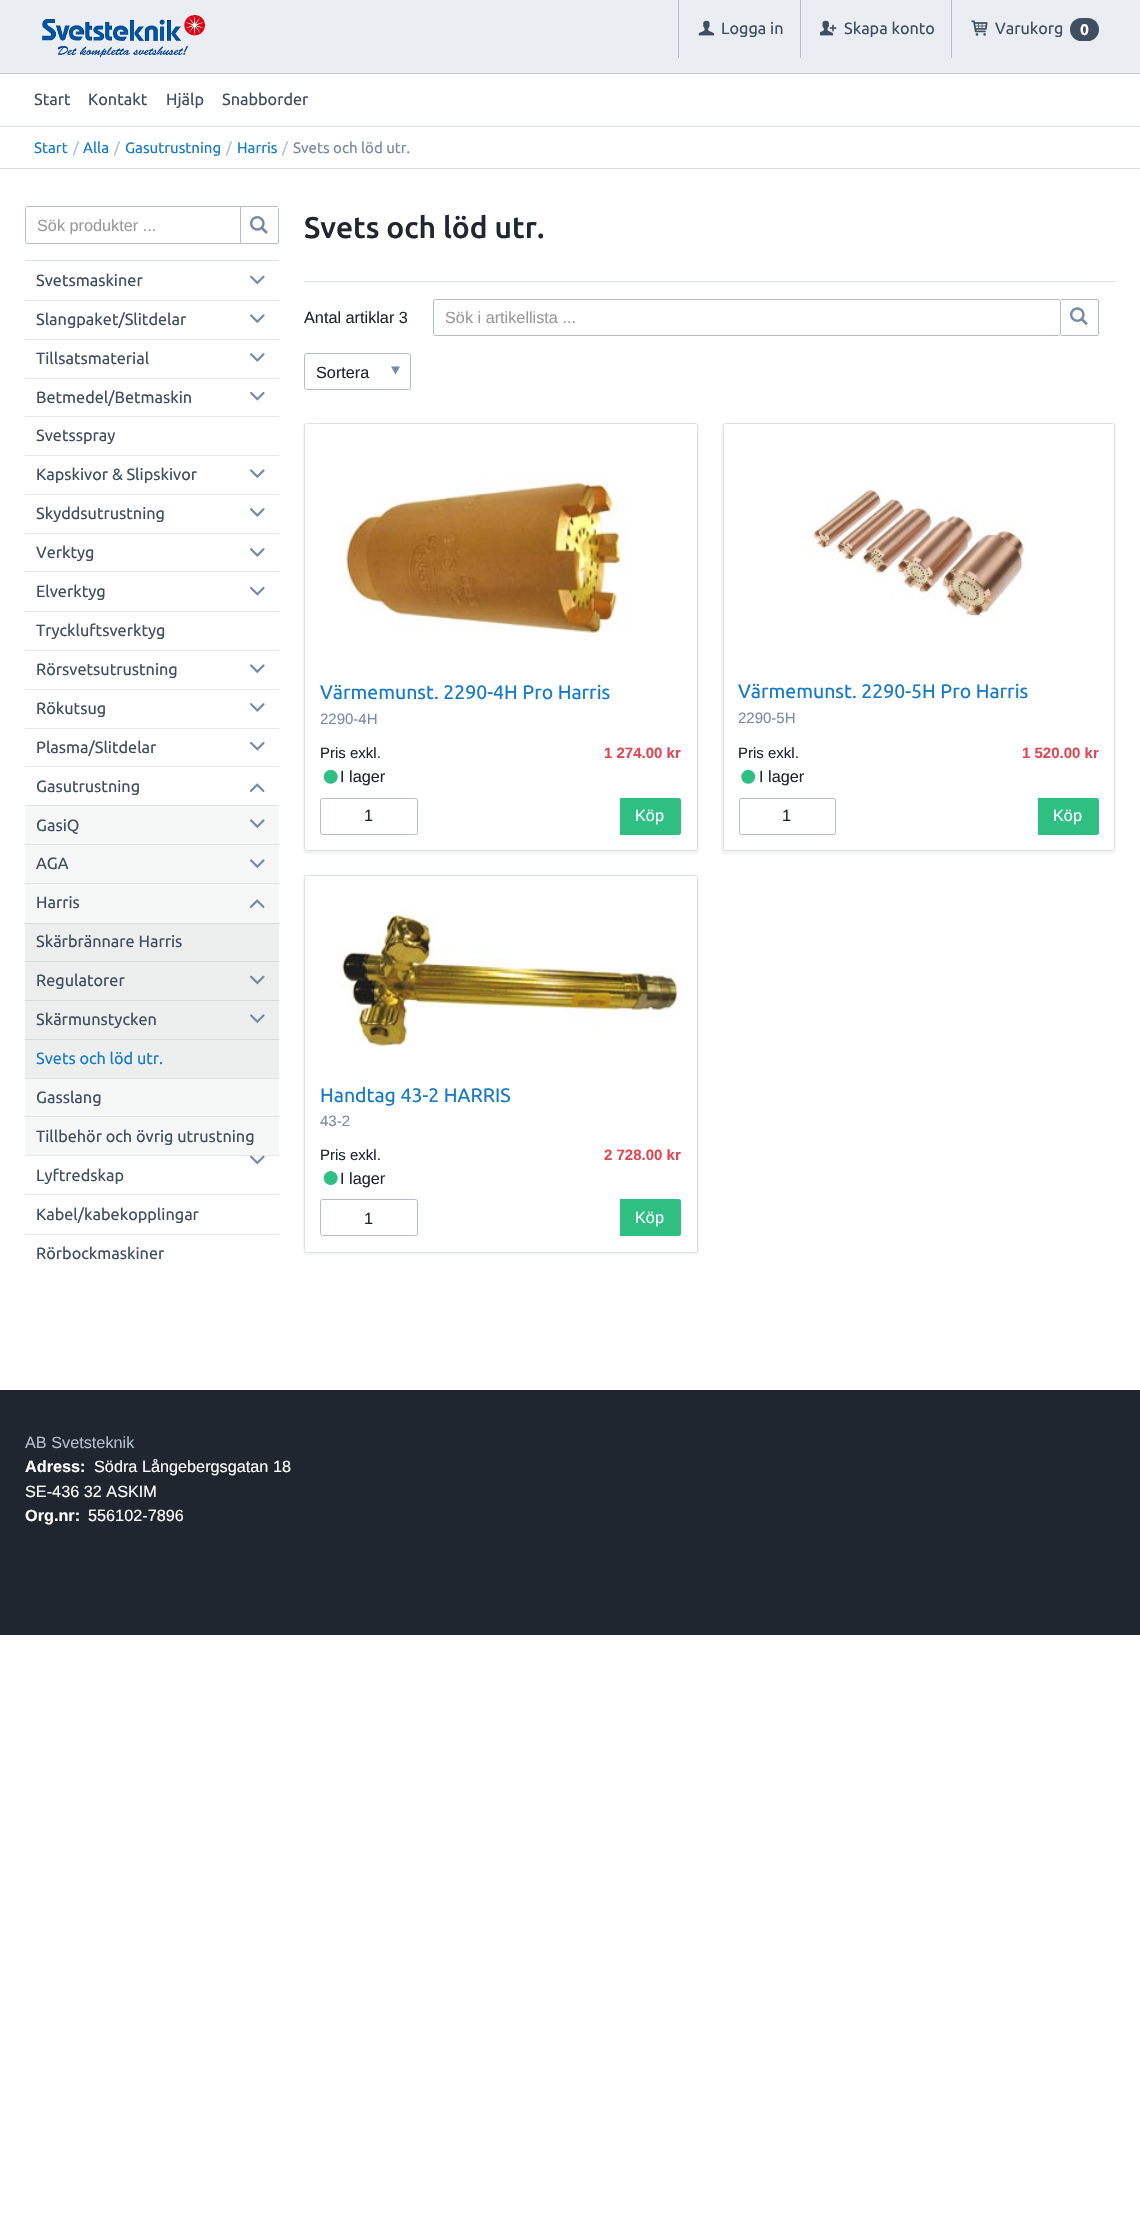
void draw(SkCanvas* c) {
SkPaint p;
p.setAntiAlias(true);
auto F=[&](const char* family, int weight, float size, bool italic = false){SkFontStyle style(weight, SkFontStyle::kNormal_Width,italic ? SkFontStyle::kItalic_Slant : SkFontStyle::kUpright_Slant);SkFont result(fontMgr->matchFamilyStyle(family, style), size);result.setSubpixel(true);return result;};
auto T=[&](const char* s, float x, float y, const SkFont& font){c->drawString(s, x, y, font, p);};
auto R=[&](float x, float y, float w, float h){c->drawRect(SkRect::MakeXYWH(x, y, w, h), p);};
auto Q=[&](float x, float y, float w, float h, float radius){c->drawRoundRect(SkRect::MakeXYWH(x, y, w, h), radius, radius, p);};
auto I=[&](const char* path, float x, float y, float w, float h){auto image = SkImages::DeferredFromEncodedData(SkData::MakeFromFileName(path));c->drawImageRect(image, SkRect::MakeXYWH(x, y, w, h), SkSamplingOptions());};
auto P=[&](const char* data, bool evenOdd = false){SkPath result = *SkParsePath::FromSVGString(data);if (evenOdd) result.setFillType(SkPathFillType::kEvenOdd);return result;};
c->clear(0xffffffff);
p.setColor(0xffeaedf1);
R(0,0,1140,73);
p.setColor(0xffc2cbd7);
R(0,73,1140,1);
I("1.png",42,15,163,43);
p.setColor(0xffb3becd);
R(678,0,1,58);
I("2.png",698,20,17,16);
auto f1 = F("Ubuntu",400,16.25);
p.setColor(0xff3f4e60);
T("Logga in",721,34,f1);
p.setColor(0xffb3becd);
R(800,0,1,58);
I("3.png",820,20,17,16);
p.setColor(0xff3f4e60);
T("Skapa konto",844,34,f1);
p.setColor(0xffb3becd);
R(951,0,1,58);
I("4.png",971,20,17,16);
p.setColor(0xff3f4e60);
T("Varukorg",995,34,f1);
Q(1070,18,29,23,11.5);
auto f2 = F("Ubuntu",700,15);
p.setColor(0xffffffff);
T("0",1080,35,f2);
p.setColor(0xffdbe0e7);
R(0,126,1140,1);
p.setColor(0xff3f4e60);
T("Start",34,105,f1);
T("Kontakt",88,105,f1);
T("Hjälp",166,105,f1);
T("Snabborder",222,105,f1);
p.setColor(0xffdbe0e7);
R(0,168,1140,1);
auto f3 = F("Ubuntu",400,15);
p.setColor(0xff167ac6);
T("Start",34,153,f3);
p.setColor(0xffb3becd);
T("/",73,153,f3);
p.setColor(0xff167ac6);
T("Alla",83,153,f3);
p.setColor(0xffb3becd);
T("/",114,153,f3);
p.setColor(0xff167ac6);
T("Gasutrustning",125,153,f3);
p.setColor(0xffb3becd);
T("/",226,153,f3);
p.setColor(0xff167ac6);
T("Harris",237,153,f3);
p.setColor(0xffb3becd);
T("/",282,153,f3);
p.setColor(0xff768aa4);
T("Svets och löd utr.",293,153,f3);
p.setStroke(true);
p.setStrokeWidth(1);
p.setColor(0xffb3becd);
c->drawPath(P("M27.5 206.5h213v37h-213c-1 0-2-1-2-2v-33c0-1 1-2 2-2z"),p);
auto f4 = F("Liberation Sans",400,16.25);
p.setStroke(false);
p.setColor(0xff999999);
T("Sök produkter ...",37,231,f4);
p.setColor(0xffb3becd);
R(241,206,37,1);
R(278,208,1,35);
R(241,243,37,1);
I("5.png",250,216,18,18);
p.setColor(0xffdbe0e7);
R(25,260,254,1);
p.setColor(0xffe9e9ea);
R(25,300,254,1);
p.setColor(0xff3f4e60);
T("Svetsmaskiner",36,286,f1);
I("6.png",250,275,15,10);
p.setColor(0xffe9e9ea);
R(25,339,254,1);
p.setColor(0xff3f4e60);
T("Slangpaket/Slitdelar",36,325,f1);
I("7.png",250,314,15,10);
p.setColor(0xffe9e9ea);
R(25,378,254,1);
p.setColor(0xff3f4e60);
T("Tillsatsmaterial",36,364,f1);
I("8.png",250,353,15,9);
p.setColor(0xffe9e9ea);
R(25,416,254,1);
p.setColor(0xff3f4e60);
T("Betmedel/Betmaskin",36,403,f1);
I("9.png",250,391,15,10);
p.setColor(0xffe9e9ea);
R(25,455,254,1);
p.setColor(0xff3f4e60);
T("Svetsspray",36,441,f1);
p.setColor(0xffe9e9ea);
R(25,494,254,1);
p.setColor(0xff3f4e60);
T("Kapskivor & Slipskivor",36,480,f1);
I("7.png",250,469,15,10);
p.setColor(0xffe9e9ea);
R(25,533,254,1);
p.setColor(0xff3f4e60);
T("Skyddsutrustning",36,519,f1);
I("8.png",250,508,15,9);
p.setColor(0xffe9e9ea);
R(25,571,254,1);
p.setColor(0xff3f4e60);
T("Verktyg",36,558,f1);
I("8.png",250,548,15,9);
p.setColor(0xffe9e9ea);
R(25,611,254,1);
p.setColor(0xff3f4e60);
T("Elverktyg",36,597,f1);
I("9.png",250,586,15,10);
p.setColor(0xffe9e9ea);
R(25,650,254,1);
p.setColor(0xff3f4e60);
T("Tryckluftsverktyg",36,636,f1);
p.setColor(0xffe9e9ea);
R(25,689,254,1);
p.setColor(0xff3f4e60);
T("Rörsvetsutrustning",36,675,f1);
I("7.png",250,664,15,10);
p.setColor(0xffe9e9ea);
R(25,728,254,1);
p.setColor(0xff3f4e60);
T("Rökutsug",36,714,f1);
I("8.png",250,703,15,9);
p.setColor(0xffe9e9ea);
R(25,766,254,1);
p.setColor(0xff3f4e60);
T("Plasma/Slitdelar",36,753,f1);
I("9.png",250,741,15,10);
p.setColor(0xffe9e9ea);
R(25,1155,254,1);
p.setColor(0xff3f4e60);
T("Gasutrustning",36,792,f1);
I("10.png",249,783,16,9);
p.setColor(0xfff6f7f7);
R(25,806,254,349);
p.setColor(0xffe1e2e3);
R(25,805,254,1);
R(25,844,254,1);
p.setColor(0xff3f4e60);
T("GasiQ",36,831,f1);
I("11.png",250,819,15,10);
p.setColor(0xffe1e2e3);
R(25,883,254,1);
p.setColor(0xff3f4e60);
T("AGA",36,869,f1);
I("11.png",250,859,15,10);
p.setColor(0xffe1e2e3);
R(25,1078,254,1);
p.setColor(0xff3f4e60);
T("Harris",36,908,f1);
I("12.png",249,899,16,9);
p.setColor(0xffedefef);
R(25,924,254,154);
p.setColor(0xffd8dbdc);
R(25,923,254,1);
R(25,961,254,1);
p.setColor(0xff3f4e60);
T("Skärbrännare Harris",36,947,f1);
p.setColor(0xffd8dbdc);
R(25,1000,254,1);
p.setColor(0xff3f4e60);
T("Regulatorer",36,986,f1);
I("13.png",250,975,15,10);
p.setColor(0xffd8dbdc);
R(25,1039,254,1);
p.setColor(0xff3f4e60);
T("Skärmunstycken",36,1025,f1);
I("14.png",250,1014,15,10);
p.setColor(0xff167ac6);
T("Svets och löd utr.",36,1064,f1);
p.setColor(0xffe1e2e3);
R(25,1116,254,1);
p.setColor(0xff3f4e60);
T("Gasslang",36,1103,f1);
T("Tillbehör och övrig utrustning",36,1142,f1);
I("15.png",250,1155,15,10);
p.setColor(0xffe9e9ea);
R(25,1194,254,1);
p.setColor(0xff3f4e60);
T("Lyftredskap",36,1181,f1);
p.setColor(0xffe9e9ea);
R(25,1234,254,1);
p.setColor(0xff3f4e60);
T("Kabel/kabekopplingar",36,1220,f1);
T("Rörbockmaskiner",36,1259,f1);
auto f5 = F("Ubuntu",500,30);
p.setColor(0xff1f262f);
T("Svets och löd utr.",304,238,f5);
p.setColor(0xffdbe0e7);
R(304,281,811,1);
p.setColor(0xff1f262f);
T("Antal artiklar 3",304,323,f4);
p.setStroke(true);
p.setColor(0xffb3becd);
c->drawRoundRect(SkRect::MakeXYWH(433.5,299.5,627,36),2,2,p);
p.setStroke(false);
p.setColor(0xff999999);
T("Sök i artikellista ...",445,323,f4);
p.setColor(0xffb3becd);
R(1061,299,37,1);
R(1098,300,1,35);
R(1061,335,37,1);
I("16.png",1070,307,18,18);
p.setStroke(true);
c->drawRoundRect(SkRect::MakeXYWH(304.5,353.5,106,36),2,2,p);
p.setStroke(false);
p.setColor(0xff1f262f);
T("Sortera",316,378,f4);
p.setColor(0xff768aa4);
c->drawPath(P("M400 366.5l-4.5 8l-4.5-8z"),p);
I("17.png",339,477,288,160);
I("18.png",323,769,15,15);
p.setStroke(true);
p.setColor(0xffb3becd);
c->drawRoundRect(SkRect::MakeXYWH(320.5,798.5,97,36),2,2,p);
p.setStroke(false);
p.setColor(0xff2fbf83);
c->drawPath(P("M620 798h58.5c1.5 0 2.5 1 2.5 2.5v32c0 1.5-1 2.5-2.5 2.5h-58.5z"),p);
c->save();
c->clipPath(P("M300 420h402v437h-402zm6.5 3h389c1.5 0 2.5 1 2.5 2.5v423c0 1.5-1 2.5-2.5 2.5h-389c-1.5 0-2.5-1-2.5-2.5v-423c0-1.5 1-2.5 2.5-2.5z",true),true);
p.setColor(0x0d1f262f);
p.setMaskFilter(SkMaskFilter::MakeBlur(kNormal_SkBlurStyle, .5));
c->drawRoundRect(SkRect::MakeXYWH(303,423,396,431),4,4,p);
p.setMaskFilter(nullptr);
c->restore();
p.setStroke(true);
p.setColor(0xffdbe0e7);
c->drawRoundRect(SkRect::MakeXYWH(304.5,423.5,393,427),2,2,p);
auto f6 = F("Ubuntu",400,19.5);
p.setStroke(false);
p.setColor(0xff167ac6);
T("Värmemunst. 2290-4H Pro Harris",320,699,f6);
auto f7 = F("Liberation Sans",400,15);
p.setColor(0xff768aa4);
T("2290-4H",320,724,f7);
p.setColor(0xff1f262f);
T("Pris exkl.",320,758,f7);
auto f8 = F("Liberation Sans",700,15);
p.setColor(0xffe04755);
T("1 274.00 kr",604,758,f8);
p.setColor(0xff1f262f);
T("I lager",340,782,f4);
T("1",364,821,f4);
p.setColor(0xffffffff);
T("Köp",635,821,f4);
I("19.png",806,482,220,136);
I("20.png",741,769,15,15);
p.setStroke(true);
p.setColor(0xffb3becd);
c->drawRoundRect(SkRect::MakeXYWH(739.5,798.5,96,36),2,2,p);
p.setStroke(false);
p.setColor(0xff2fbf83);
c->drawPath(P("M1038 798h58.5c1.5 0 2.5 1 2.5 2.5v32c0 1.5-1 2.5-2.5 2.5h-58.5z"),p);
c->save();
c->clipPath(P("M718 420h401v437h-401zm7.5 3h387c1.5 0 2.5 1 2.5 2.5v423c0 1.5-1 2.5-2.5 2.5h-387c-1.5 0-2.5-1-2.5-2.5v-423c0-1.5 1-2.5 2.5-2.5z",true),true);
p.setColor(0x0d1f262f);
p.setMaskFilter(SkMaskFilter::MakeBlur(kNormal_SkBlurStyle, .5));
c->drawRoundRect(SkRect::MakeXYWH(721,423,395,431),4,4,p);
p.setMaskFilter(nullptr);
c->restore();
p.setStroke(true);
p.setColor(0xffdbe0e7);
c->drawRoundRect(SkRect::MakeXYWH(723.5,423.5,391,427),2,2,p);
p.setStroke(false);
p.setColor(0xff167ac6);
T("Värmemunst. 2290-5H Pro Harris",738,698,f6);
p.setColor(0xff768aa4);
T("2290-5H",738,723,f7);
p.setColor(0xff1f262f);
T("Pris exkl.",738,758,f7);
p.setColor(0xffe04755);
T("1 520.00 kr",1022,758,f8);
p.setColor(0xff1f262f);
T("I lager",759,782,f4);
T("1",782,821,f4);
p.setColor(0xffffffff);
T("Köp",1053,821,f4);
I("21.png",339,911,341,136);
I("22.png",323,1171,15,14);
p.setStroke(true);
p.setColor(0xffb3becd);
c->drawRoundRect(SkRect::MakeXYWH(320.5,1199.5,97,36),2,2,p);
p.setStroke(false);
p.setColor(0xff2fbf83);
c->drawPath(P("M620 1199h58.5c1.5 0 2.5 1 2.5 2.5v32c0 1.5-1 2.5-2.5 2.5h-58.5z"),p);
c->save();
c->clipPath(P("M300 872h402v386h-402zm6.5 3h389c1.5 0 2.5 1 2.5 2.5v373c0 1.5-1 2.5-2.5 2.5h-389c-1.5 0-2.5-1-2.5-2.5v-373c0-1.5 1-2.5 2.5-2.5z",true),true);
p.setColor(0x0d1f262f);
p.setMaskFilter(SkMaskFilter::MakeBlur(kNormal_SkBlurStyle, .5));
c->drawRoundRect(SkRect::MakeXYWH(303,875,396,380),4,4,p);
p.setMaskFilter(nullptr);
c->restore();
p.setStroke(true);
p.setColor(0xffdbe0e7);
c->drawRoundRect(SkRect::MakeXYWH(304.5,875.5,393,377),2,2,p);
p.setStroke(false);
p.setColor(0xff167ac6);
T("Handtag 43-2 HARRIS",320,1102,f6);
p.setColor(0xff768aa4);
T("43-2",320,1126,f7);
p.setColor(0xff1f262f);
T("Pris exkl.",320,1160,f7);
p.setColor(0xffe04755);
T("2 728.00 kr",604,1160,f8);
p.setColor(0xff1f262f);
T("I lager",340,1184,f4);
T("1",364,1224,f4);
p.setColor(0xffffffff);
T("Köp",635,1223,f4);
p.setColor(0xff1f262f);
R(0,1390,1140,245);
p.setColor(0xffb3becd);
T("AB Svetsteknik",25,1448,f4);
auto f9 = F("Liberation Sans",700,16.25);
p.setColor(0xffffffff);
T("Adress:",25,1472,f9);
T("Södra Långebergsgatan 18",94,1472,f4);
T("SE-436 32 ASKIM",25,1497,f4);
T("Org.nr:",25,1521,f9);
T("556102-7896",88,1521,f4);
}
